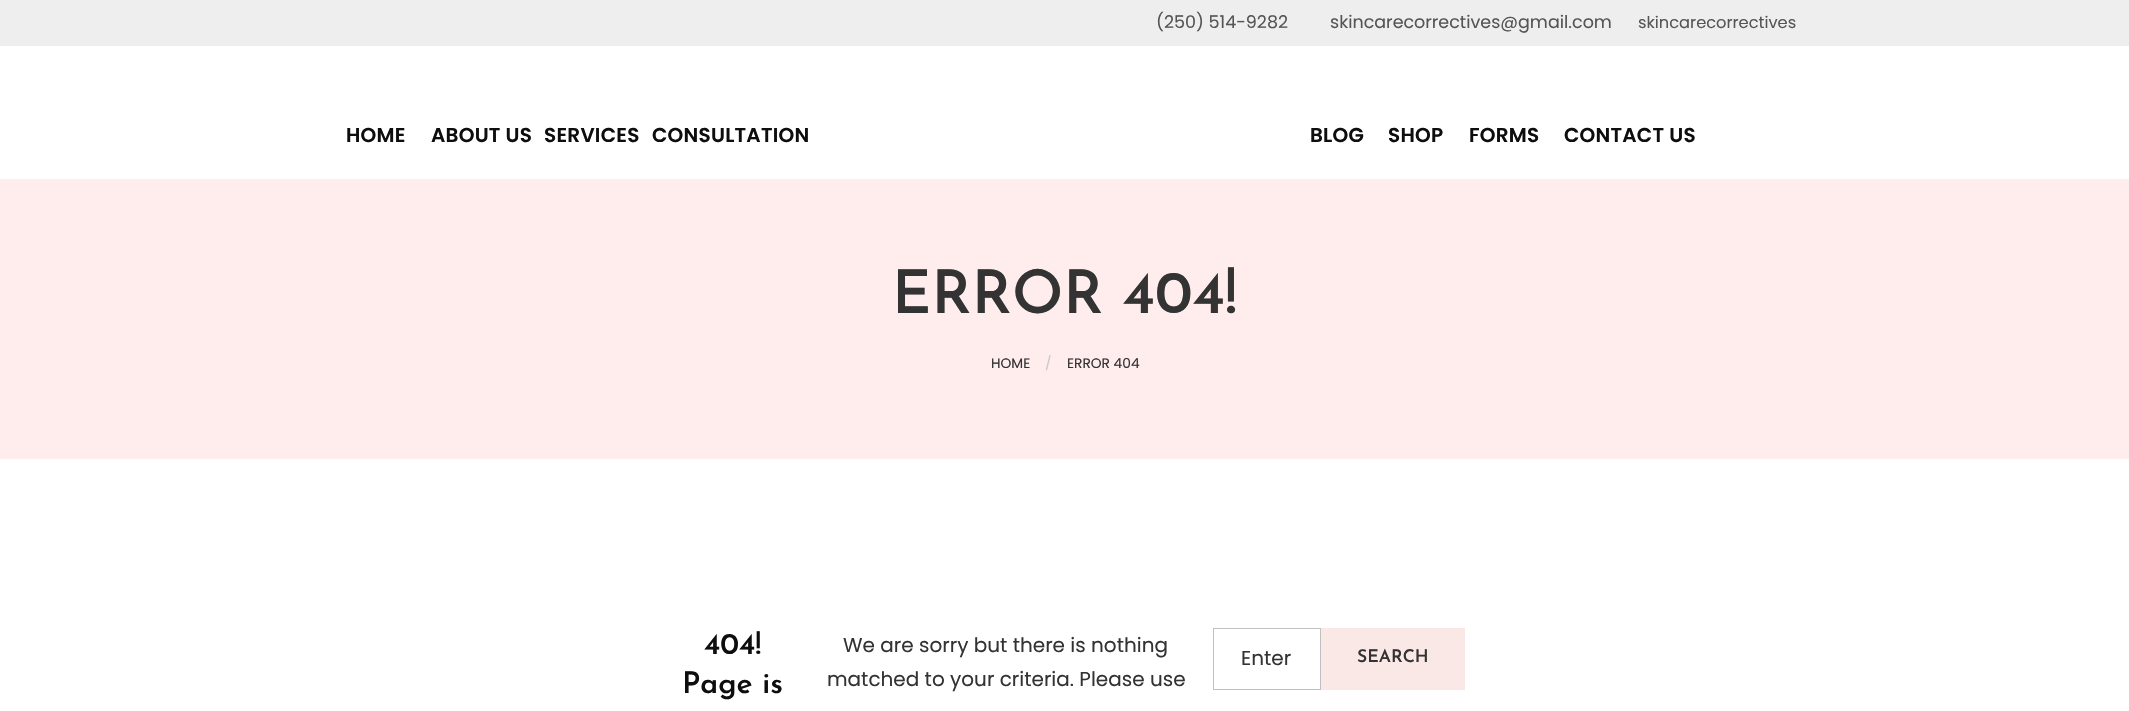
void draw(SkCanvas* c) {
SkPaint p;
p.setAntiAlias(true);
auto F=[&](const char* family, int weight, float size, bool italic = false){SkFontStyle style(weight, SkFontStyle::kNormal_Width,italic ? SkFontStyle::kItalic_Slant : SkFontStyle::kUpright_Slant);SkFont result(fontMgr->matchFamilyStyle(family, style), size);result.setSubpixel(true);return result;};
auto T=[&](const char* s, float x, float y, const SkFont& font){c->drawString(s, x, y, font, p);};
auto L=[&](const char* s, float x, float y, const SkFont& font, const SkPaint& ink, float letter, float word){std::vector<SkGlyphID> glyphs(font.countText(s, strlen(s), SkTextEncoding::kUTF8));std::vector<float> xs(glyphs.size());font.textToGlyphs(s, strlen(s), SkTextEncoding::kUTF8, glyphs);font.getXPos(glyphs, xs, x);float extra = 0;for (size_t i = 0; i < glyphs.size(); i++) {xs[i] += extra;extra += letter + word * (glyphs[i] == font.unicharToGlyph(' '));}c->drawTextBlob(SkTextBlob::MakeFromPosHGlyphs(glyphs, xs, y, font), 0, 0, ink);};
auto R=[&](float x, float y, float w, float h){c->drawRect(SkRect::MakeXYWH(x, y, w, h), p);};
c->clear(0xffffffff);
p.setColor(0xffeeeeee);
R(0,0,2129,46);
auto f1 = F("Poppins",400,17.5);
p.setColor(0xff555555);
T("(250) 514-9282",1156,28,f1);
T("skincarecorrectives@gmail.com",1330,28,f1);
auto f2 = F("Poppins",400,16.25);
T("skincarecorrectives",1638,28,f2);
auto f3 = F("Poppins",600,20);
p.setColor(0xff0e0e0e);
L("HOME",346,142,f3,p,.25,0);
L("ABOUT US",431,142,f3,p,.25,0);
L("SERVICES",544,142,f3,p,.25,0);
L("CONSULTATION",652,142,f3,p,.25,0);
L("BLOG",1310,142,f3,p,.25,0);
L("SHOP",1388,142,f3,p,.25,0);
L("FORMS",1469,142,f3,p,.25,0);
L("CONTACT US",1564,142,f3,p,.25,0);
p.setColor(0xffffeced);
R(0,179,2129,280);
auto f4 = F("Josefin Sans",600,60);
p.setColor(0xff333333);
T("ERROR 404!",892,313,f4);
auto f5 = F("Poppins",400,13.75);
T("HOME",991,368,f5);
p.setColor(0xffcacaca);
T("/",1045,368,f5);
p.setColor(0xff333333);
T("ERROR 404",1067,368,f5);
auto f6 = F("Josefin Sans",600,30);
p.setColor(0xff0e0e0e);
T("404!",704,654,f6);
T("Page is",682,693,f6);
auto f7 = F("Poppins",400,20);
p.setColor(0xff333333);
T("We are sorry but there is nothing",843,652,f7);
T("matched to your criteria. Please use",827,686,f7);
p.setStroke(true);
p.setStrokeWidth(1);
p.setColor(0xffc0c0c0);
c->drawRect(SkRect::MakeXYWH(1213.5,628.5,107,61),p);
p.setStroke(false);
p.setColor(0xff333333);
T("Enter",1241,665,f7);
p.setColor(0xfffae8e6);
R(1321,628,144,62);
auto f8 = F("Josefin Sans",600,17.5);
p.setColor(0xff333333);
T("SEARCH",1357,662,f8);
}
